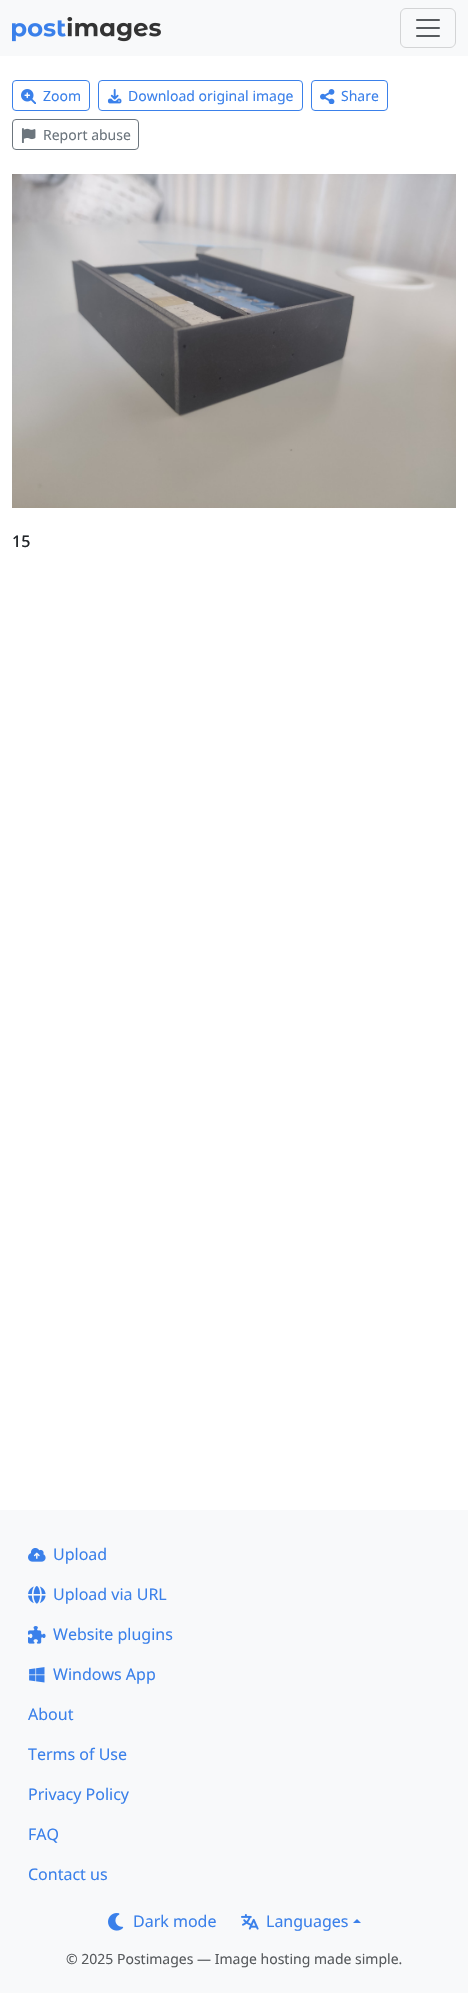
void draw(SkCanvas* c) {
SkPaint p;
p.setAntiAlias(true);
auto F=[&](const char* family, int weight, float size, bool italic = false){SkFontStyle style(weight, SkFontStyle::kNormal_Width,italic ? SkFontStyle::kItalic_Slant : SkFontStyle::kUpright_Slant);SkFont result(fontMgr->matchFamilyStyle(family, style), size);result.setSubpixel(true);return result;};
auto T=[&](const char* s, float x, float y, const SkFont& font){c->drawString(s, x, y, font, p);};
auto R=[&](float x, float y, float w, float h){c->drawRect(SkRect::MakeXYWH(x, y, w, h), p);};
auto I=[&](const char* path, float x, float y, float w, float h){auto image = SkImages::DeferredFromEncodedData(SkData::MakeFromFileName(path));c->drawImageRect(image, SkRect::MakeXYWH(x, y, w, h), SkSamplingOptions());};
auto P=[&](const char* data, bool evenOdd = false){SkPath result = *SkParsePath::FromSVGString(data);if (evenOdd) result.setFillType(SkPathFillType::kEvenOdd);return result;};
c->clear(0xffffffff);
p.setColor(0xfff8f9fa);
R(0,0,468,56);
I("1.png",12,17,149,25);
p.setStroke(true);
p.setStrokeWidth(1);
p.setColor(0xffd3d4d5);
c->drawRoundRect(SkRect::MakeXYWH(400.5,8.5,55,39),5.5,5.5,p);
I("2.png",416,19,24,18);
p.setColor(0xff3a80ea);
c->drawRoundRect(SkRect::MakeXYWH(12.5,80.5,77,30),3.5,3.5,p);
I("3.png",21,89,15,15);
auto f1 = F("Noto Sans",400,14);
p.setStroke(false);
T("Zoom",43,101,f1);
p.setStroke(true);
c->drawRoundRect(SkRect::MakeXYWH(98.5,80.5,204,30),3.5,3.5,p);
I("4.png",107,89,15,15);
p.setStroke(false);
T("Download original image",128,101,f1);
p.setStroke(true);
c->drawRoundRect(SkRect::MakeXYWH(311.5,80.5,76,30),3.5,3.5,p);
I("5.png",320,89,15,15);
p.setStroke(false);
T("Share",341,101,f1);
p.setStroke(true);
p.setColor(0xff6c757d);
c->drawRoundRect(SkRect::MakeXYWH(12.5,119.5,126,30),3.5,3.5,p);
I("6.png",21,128,15,15);
p.setStroke(false);
T("Report abuse",43,140,f1);
I("7.png",12,174,444,334);
auto f2 = F("Noto Sans",500,16);
p.setColor(0xff212529);
T("15",12,547,f2);
p.setColor(0xfff8f9fa);
R(0,1510,468,483);
I("8.png",28,1548,18,14);
auto f3 = F("Noto Sans",400,16);
p.setColor(0xff3a80ea);
T("Upload",53,1560,f3);
I("9.png",28,1586,18,18);
T("Upload via URL",53,1600,f3);
I("10.png",28,1626,18,18);
T("Website plugins",53,1640,f3);
I("11.png",29,1667,16,16);
T("Windows App",53,1680,f3);
T("About",28,1720,f3);
T("Terms of Use",28,1760,f3);
T("Privacy Policy",28,1800,f3);
T("FAQ",28,1840,f3);
T("Contact us",28,1880,f3);
I("12.png",108,1913,16,18);
T("Dark mode",133,1927,f3);
I("13.png",241,1914,18,16);
T("Languages",266,1927,f3);
c->drawPath(P("M361 1923h-8l4-4z"),p);
p.setColor(0xff575a5d);
T("© 2025 Postimages — Image hosting made simple.",66,1964,f1);
}
